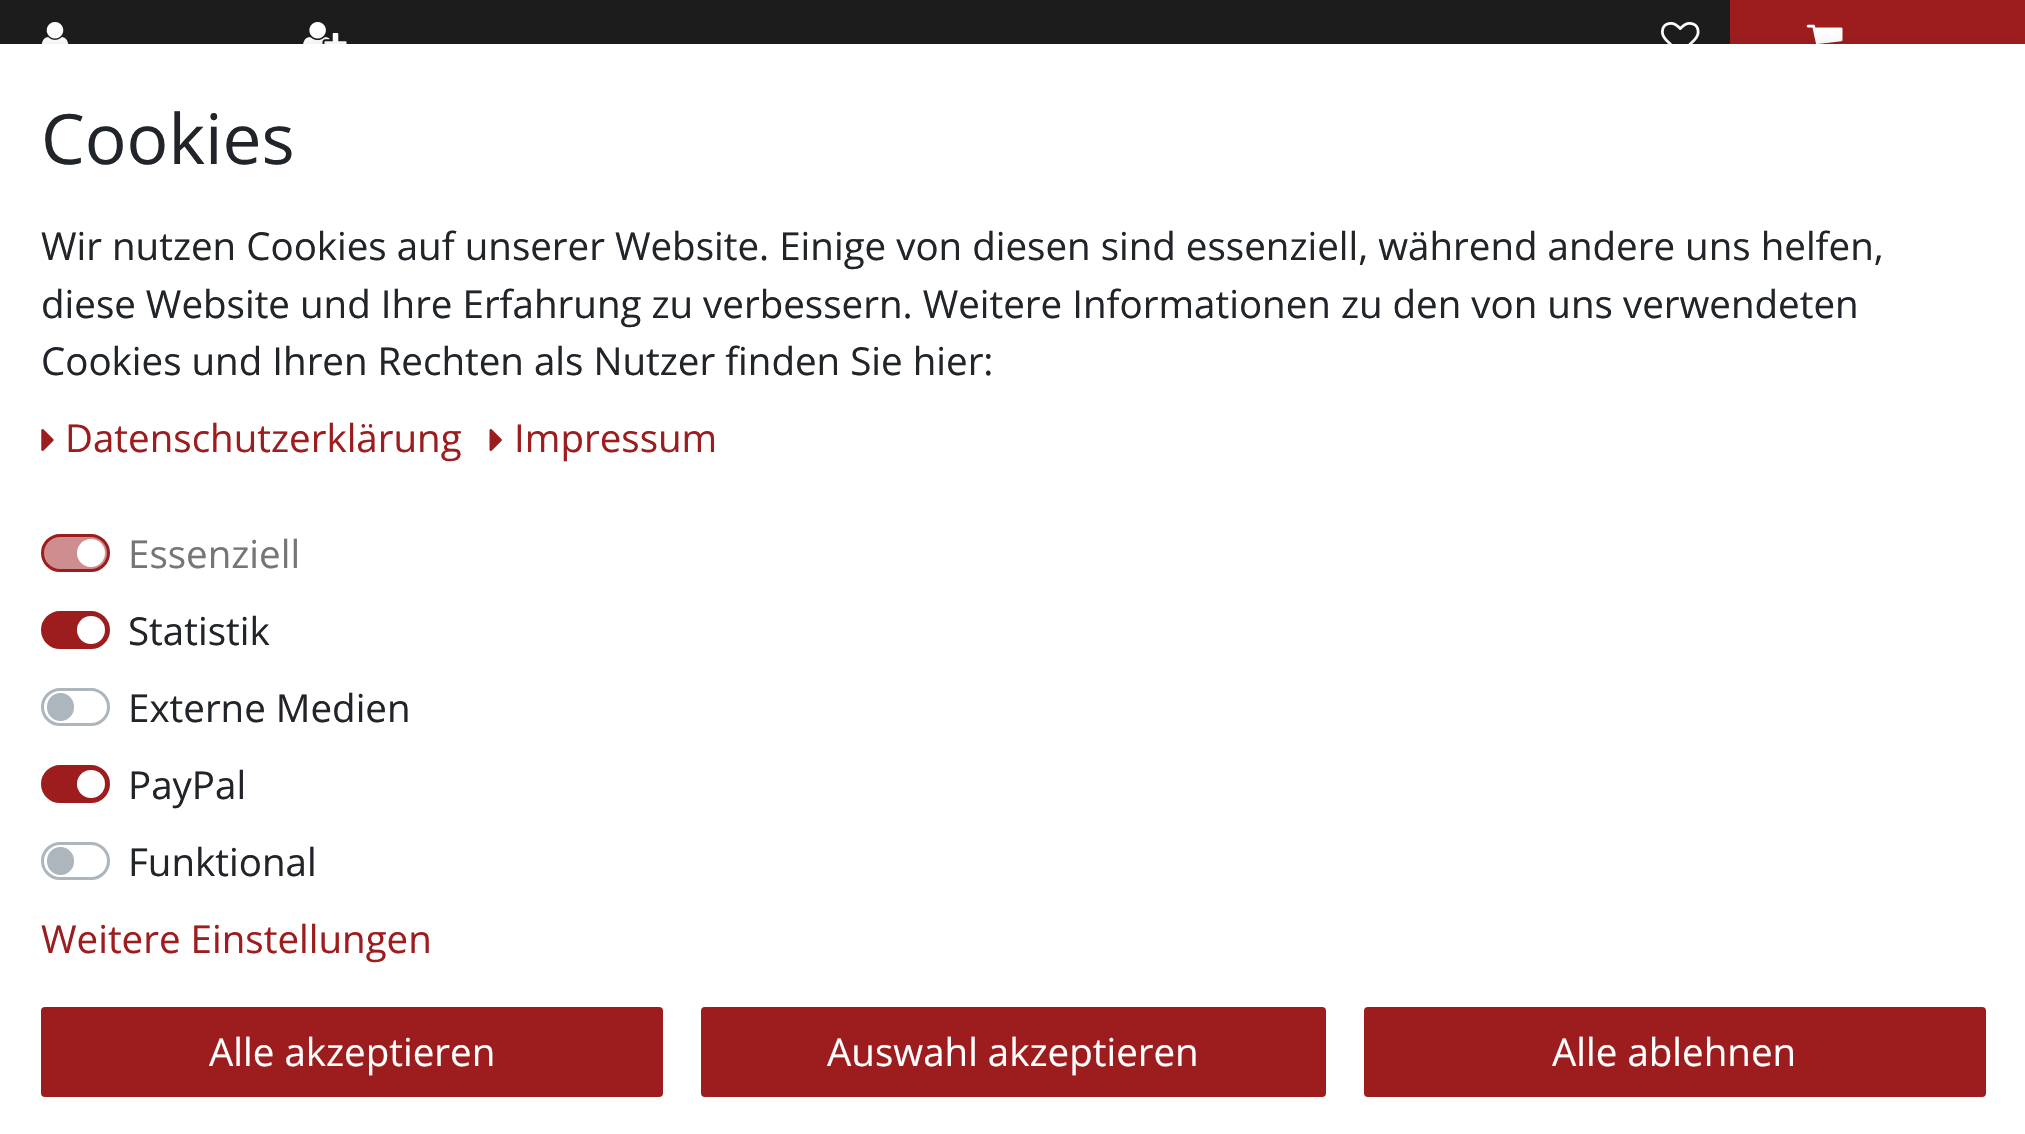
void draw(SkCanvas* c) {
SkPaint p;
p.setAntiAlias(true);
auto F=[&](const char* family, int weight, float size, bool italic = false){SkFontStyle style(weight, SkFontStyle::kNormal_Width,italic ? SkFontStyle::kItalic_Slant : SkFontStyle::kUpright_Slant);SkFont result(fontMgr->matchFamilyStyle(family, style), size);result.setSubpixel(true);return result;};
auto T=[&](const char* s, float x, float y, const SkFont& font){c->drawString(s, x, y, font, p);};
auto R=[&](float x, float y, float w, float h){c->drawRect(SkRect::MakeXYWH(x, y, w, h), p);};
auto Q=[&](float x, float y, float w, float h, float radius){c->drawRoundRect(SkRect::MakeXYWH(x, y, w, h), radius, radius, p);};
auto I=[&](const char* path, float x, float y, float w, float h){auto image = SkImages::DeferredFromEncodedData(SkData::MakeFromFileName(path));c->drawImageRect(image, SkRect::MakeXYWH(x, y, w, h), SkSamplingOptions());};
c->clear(0xff1c1c1c);
I("1.png",41,22,28,22);
I("2.png",303,22,44,22);
I("3.png",1661,22,39,22);
p.setColor(0xff9d1d1e);
R(1730,0,295,44);
I("4.png",1806,24,37,20);
p.setColor(0x26000000);
p.setMaskFilter(SkMaskFilter::MakeBlur(kNormal_SkBlurStyle, 7));
c->drawRect(SkRect::MakeXYWH(0,47,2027,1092),p);
p.setMaskFilter(nullptr);
p.setColor(0xffffffff);
R(0,44,2025,1090);
auto f1 = F("Open Sans",400,69.5);
p.setColor(0xff212529);
T("Cookies",41,164,f1);
auto f2 = F("Open Sans",400,38.5);
T("Wir nutzen Cookies auf unserer Website. Einige von diesen sind essenziell, während andere uns helfen,",41,260,f2);
T("diese Website und Ihre Erfahrung zu verbessern. Weitere Informationen zu den von uns verwendeten",41,318,f2);
T("Cookies und Ihren Rechten als Nutzer finden Sie hier:",41,375,f2);
I("5.png",41,429,13,22);
p.setColor(0xff9d1d1e);
T("Datenschutzerklärung",65,452,f2);
I("6.png",489,429,13,22);
T("Impressum",514,452,f2);
p.setColor(0xffce8e8f);
c->drawRoundRect(SkRect::MakeXYWH(42.5,535.5,66,35),17.5,17.5,p);
p.setStroke(true);
p.setStrokeWidth(3);
p.setColor(0xff9d1d1e);
c->drawRoundRect(SkRect::MakeXYWH(42.5,535.5,66,35),17.5,17.5,p);
p.setStroke(false);
p.setColor(0xff767676);
T("Essenziell",128,568,f2);
p.setColor(0xffffffff);
c->drawCircle(91,553,14,p);
p.setColor(0xff9d1d1e);
c->drawRoundRect(SkRect::MakeXYWH(42.5,612.5,66,35),17.5,17.5,p);
p.setStroke(true);
c->drawRoundRect(SkRect::MakeXYWH(42.5,612.5,66,35),17.5,17.5,p);
p.setStroke(false);
p.setColor(0xff212529);
T("Statistik",128,645,f2);
p.setColor(0xffffffff);
c->drawCircle(91,630,14,p);
p.setStroke(true);
p.setColor(0xffadb5bd);
c->drawRoundRect(SkRect::MakeXYWH(42.5,689.5,66,35),17.5,17.5,p);
p.setStroke(false);
p.setColor(0xff212529);
T("Externe Medien",128,722,f2);
p.setColor(0xffadb5bd);
Q(47,693,27,28,13.5);
p.setColor(0xff9d1d1e);
c->drawRoundRect(SkRect::MakeXYWH(42.5,766.5,66,35),17.5,17.5,p);
p.setStroke(true);
c->drawRoundRect(SkRect::MakeXYWH(42.5,766.5,66,35),17.5,17.5,p);
p.setStroke(false);
p.setColor(0xff212529);
T("PayPal",128,799,f2);
p.setColor(0xffffffff);
c->drawCircle(91,784,14,p);
p.setStroke(true);
p.setColor(0xffadb5bd);
c->drawRoundRect(SkRect::MakeXYWH(42.5,843.5,66,35),17.5,17.5,p);
p.setStroke(false);
p.setColor(0xff212529);
T("Funktional",128,876,f2);
p.setColor(0xffadb5bd);
Q(47,847,27,28,13.5);
p.setColor(0xff9d1d1e);
T("Weitere Einstellungen",41,953,f2);
c->drawRoundRect(SkRect::MakeXYWH(42.5,1008.5,619,87),2.5,2.5,p);
p.setStroke(true);
c->drawRoundRect(SkRect::MakeXYWH(42.5,1008.5,619,87),2.5,2.5,p);
p.setStroke(false);
p.setColor(0xffffffff);
T("Alle akzeptieren",209,1066,f2);
p.setColor(0xff9d1d1e);
c->drawRoundRect(SkRect::MakeXYWH(702.5,1008.5,622,87),2.5,2.5,p);
p.setStroke(true);
c->drawRoundRect(SkRect::MakeXYWH(702.5,1008.5,622,87),2.5,2.5,p);
p.setStroke(false);
p.setColor(0xffffffff);
T("Auswahl akzeptieren",827,1066,f2);
p.setColor(0xff9d1d1e);
c->drawRoundRect(SkRect::MakeXYWH(1365.5,1008.5,619,87),2.5,2.5,p);
p.setStroke(true);
c->drawRoundRect(SkRect::MakeXYWH(1365.5,1008.5,619,87),2.5,2.5,p);
p.setStroke(false);
p.setColor(0xffffffff);
T("Alle ablehnen",1552,1066,f2);
}
